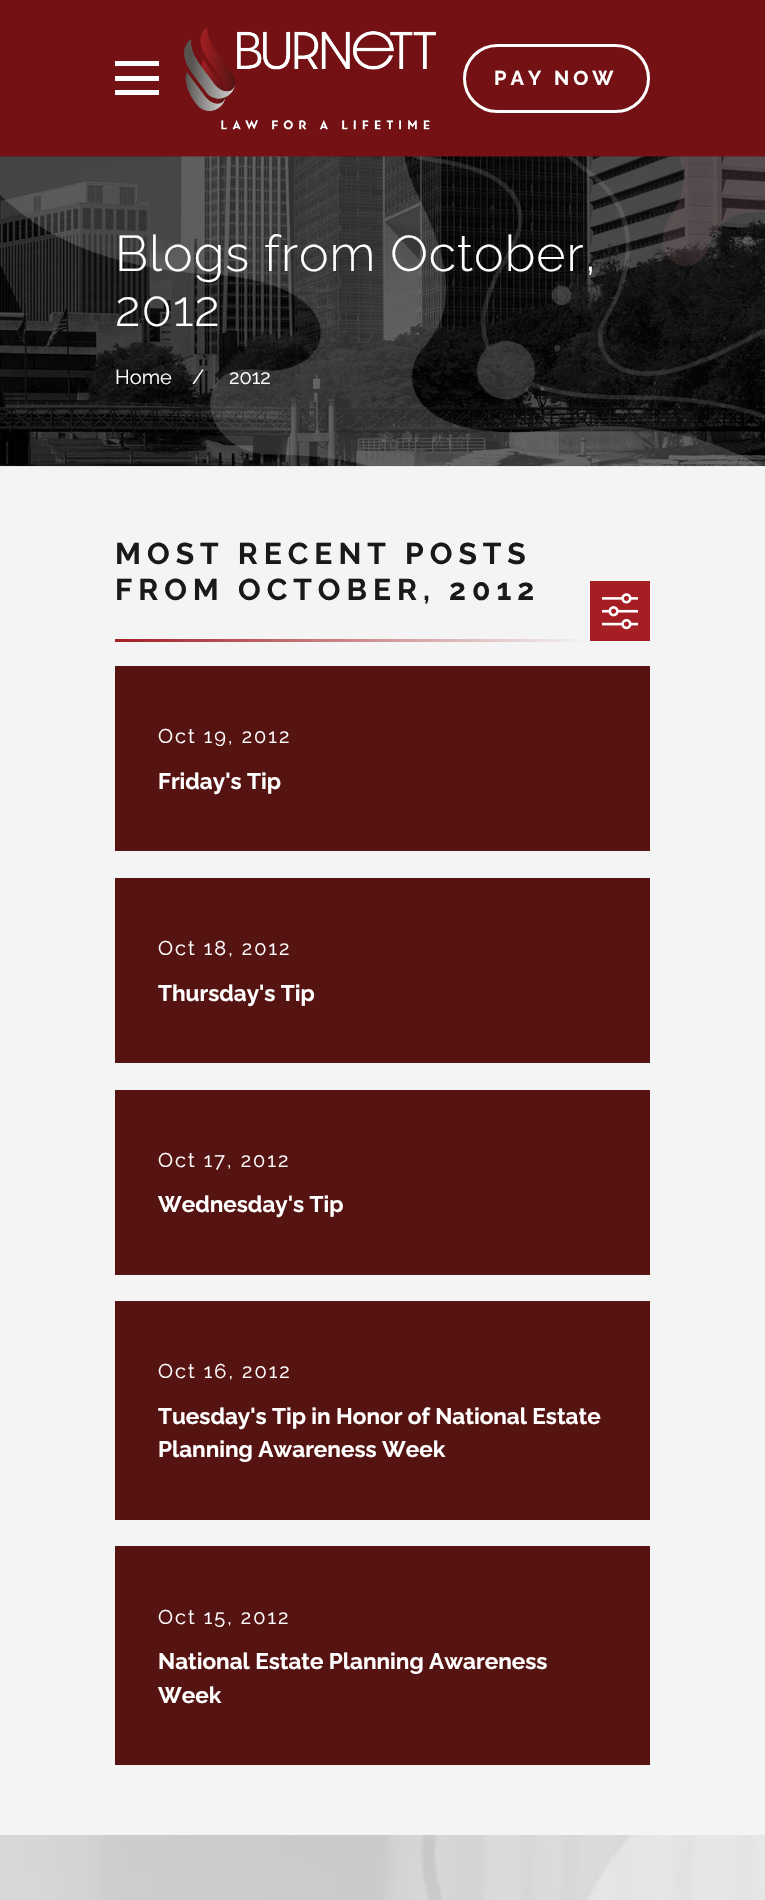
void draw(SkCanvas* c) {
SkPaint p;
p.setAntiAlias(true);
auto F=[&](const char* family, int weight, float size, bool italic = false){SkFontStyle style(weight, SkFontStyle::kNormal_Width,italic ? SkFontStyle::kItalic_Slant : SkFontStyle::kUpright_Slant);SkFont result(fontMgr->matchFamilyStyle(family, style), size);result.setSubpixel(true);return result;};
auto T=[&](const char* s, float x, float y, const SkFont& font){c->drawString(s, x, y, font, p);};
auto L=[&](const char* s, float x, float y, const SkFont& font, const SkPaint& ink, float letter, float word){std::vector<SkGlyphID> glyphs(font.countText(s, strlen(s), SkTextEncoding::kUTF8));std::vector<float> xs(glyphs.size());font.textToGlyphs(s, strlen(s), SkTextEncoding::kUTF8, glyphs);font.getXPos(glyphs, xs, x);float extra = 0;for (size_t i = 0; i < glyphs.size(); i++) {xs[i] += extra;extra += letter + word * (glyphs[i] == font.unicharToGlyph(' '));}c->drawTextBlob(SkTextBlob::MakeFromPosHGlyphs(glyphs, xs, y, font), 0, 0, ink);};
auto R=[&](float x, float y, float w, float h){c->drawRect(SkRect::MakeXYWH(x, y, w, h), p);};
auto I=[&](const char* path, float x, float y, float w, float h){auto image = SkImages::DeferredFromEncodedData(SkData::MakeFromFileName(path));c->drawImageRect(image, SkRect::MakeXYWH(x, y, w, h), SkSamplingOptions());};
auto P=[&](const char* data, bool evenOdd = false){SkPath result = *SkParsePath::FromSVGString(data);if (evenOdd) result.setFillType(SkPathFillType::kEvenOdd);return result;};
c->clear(0xfff4f4f4);
p.setColor(0xff731114);
R(0,0,765,157);
p.setColor(0xffffffff);
c->drawPath(P("M115 61v5h44v-5zm0 15v5h44v-5zm0 14v5h44v-5z"),p);
I("1.png",184,27,252,103);
p.setStroke(true);
p.setStrokeWidth(3);
c->drawRoundRect(SkRect::MakeXYWH(464.5,45.5,184,66),33,33,p);
auto f1 = F("Raleway",700,20);
p.setStroke(false);
L("PAY NOW",494,85,f1,p,4,0);
I("2.png",0,156,765,311);
auto f2 = F("Raleway",300,50);
L("Blogs from October,",115,271,f2,p,1,0);
L("2012",115,326,f2,p,1,0);
auto f3 = F("Raleway",400,20);
T("Home",115,384,f3);
T("/",192,384,f3);
T("2012",229,384,f3);
auto f4 = F("Raleway",700,30);
p.setColor(0xff191919);
L("MOST RECENT POSTS",115,564,f4,p,6,0);
L("FROM OCTOBER, 2012",115,600,f4,p,6,0);
{
const SkColor colors[] = {0xffa41e23,0xfff4f4f4};
const float stops[] = {0,1};
const SkPoint ends[] = {{115,640}, {590,640}};
p.setShader(SkGradientShader::MakeLinear(ends, colors, stops, 2, SkTileMode::kClamp));
p.setAlpha(255);
}
R(115,639,475,3);
p.setShader(nullptr);
p.setColor(0xffa41e23);
R(590,581,60,60);
I("3.png",602,593,36,37);
p.setColor(0xff551311);
R(115,666,535,185);
p.setColor(0xffffffff);
L("Oct 19, 2012",158,743,f3,p,2,0);
auto f5 = F("Raleway",700,22.5);
T("Friday's Tip",158,789,f5);
p.setColor(0xff551311);
R(115,878,535,185);
p.setColor(0xffffffff);
L("Oct 18, 2012",158,955,f3,p,2,0);
T("Thursday's Tip",158,1001,f5);
p.setColor(0xff551311);
R(115,1090,535,185);
p.setColor(0xffffffff);
L("Oct 17, 2012",158,1167,f3,p,2,0);
T("Wednesday's Tip",158,1212,f5);
p.setColor(0xff551311);
R(115,1301,535,219);
p.setColor(0xffffffff);
L("Oct 16, 2012",158,1378,f3,p,2,0);
T("Tuesday's Tip in Honor of National Estate",158,1424,f5);
T("Planning Awareness Week",158,1457,f5);
p.setColor(0xff551311);
R(115,1546,535,219);
p.setColor(0xffffffff);
L("Oct 15, 2012",158,1624,f3,p,2,0);
T("National Estate Planning Awareness",158,1669,f5);
T("Week",158,1703,f5);
I("4.png",0,1835,765,65);
}
